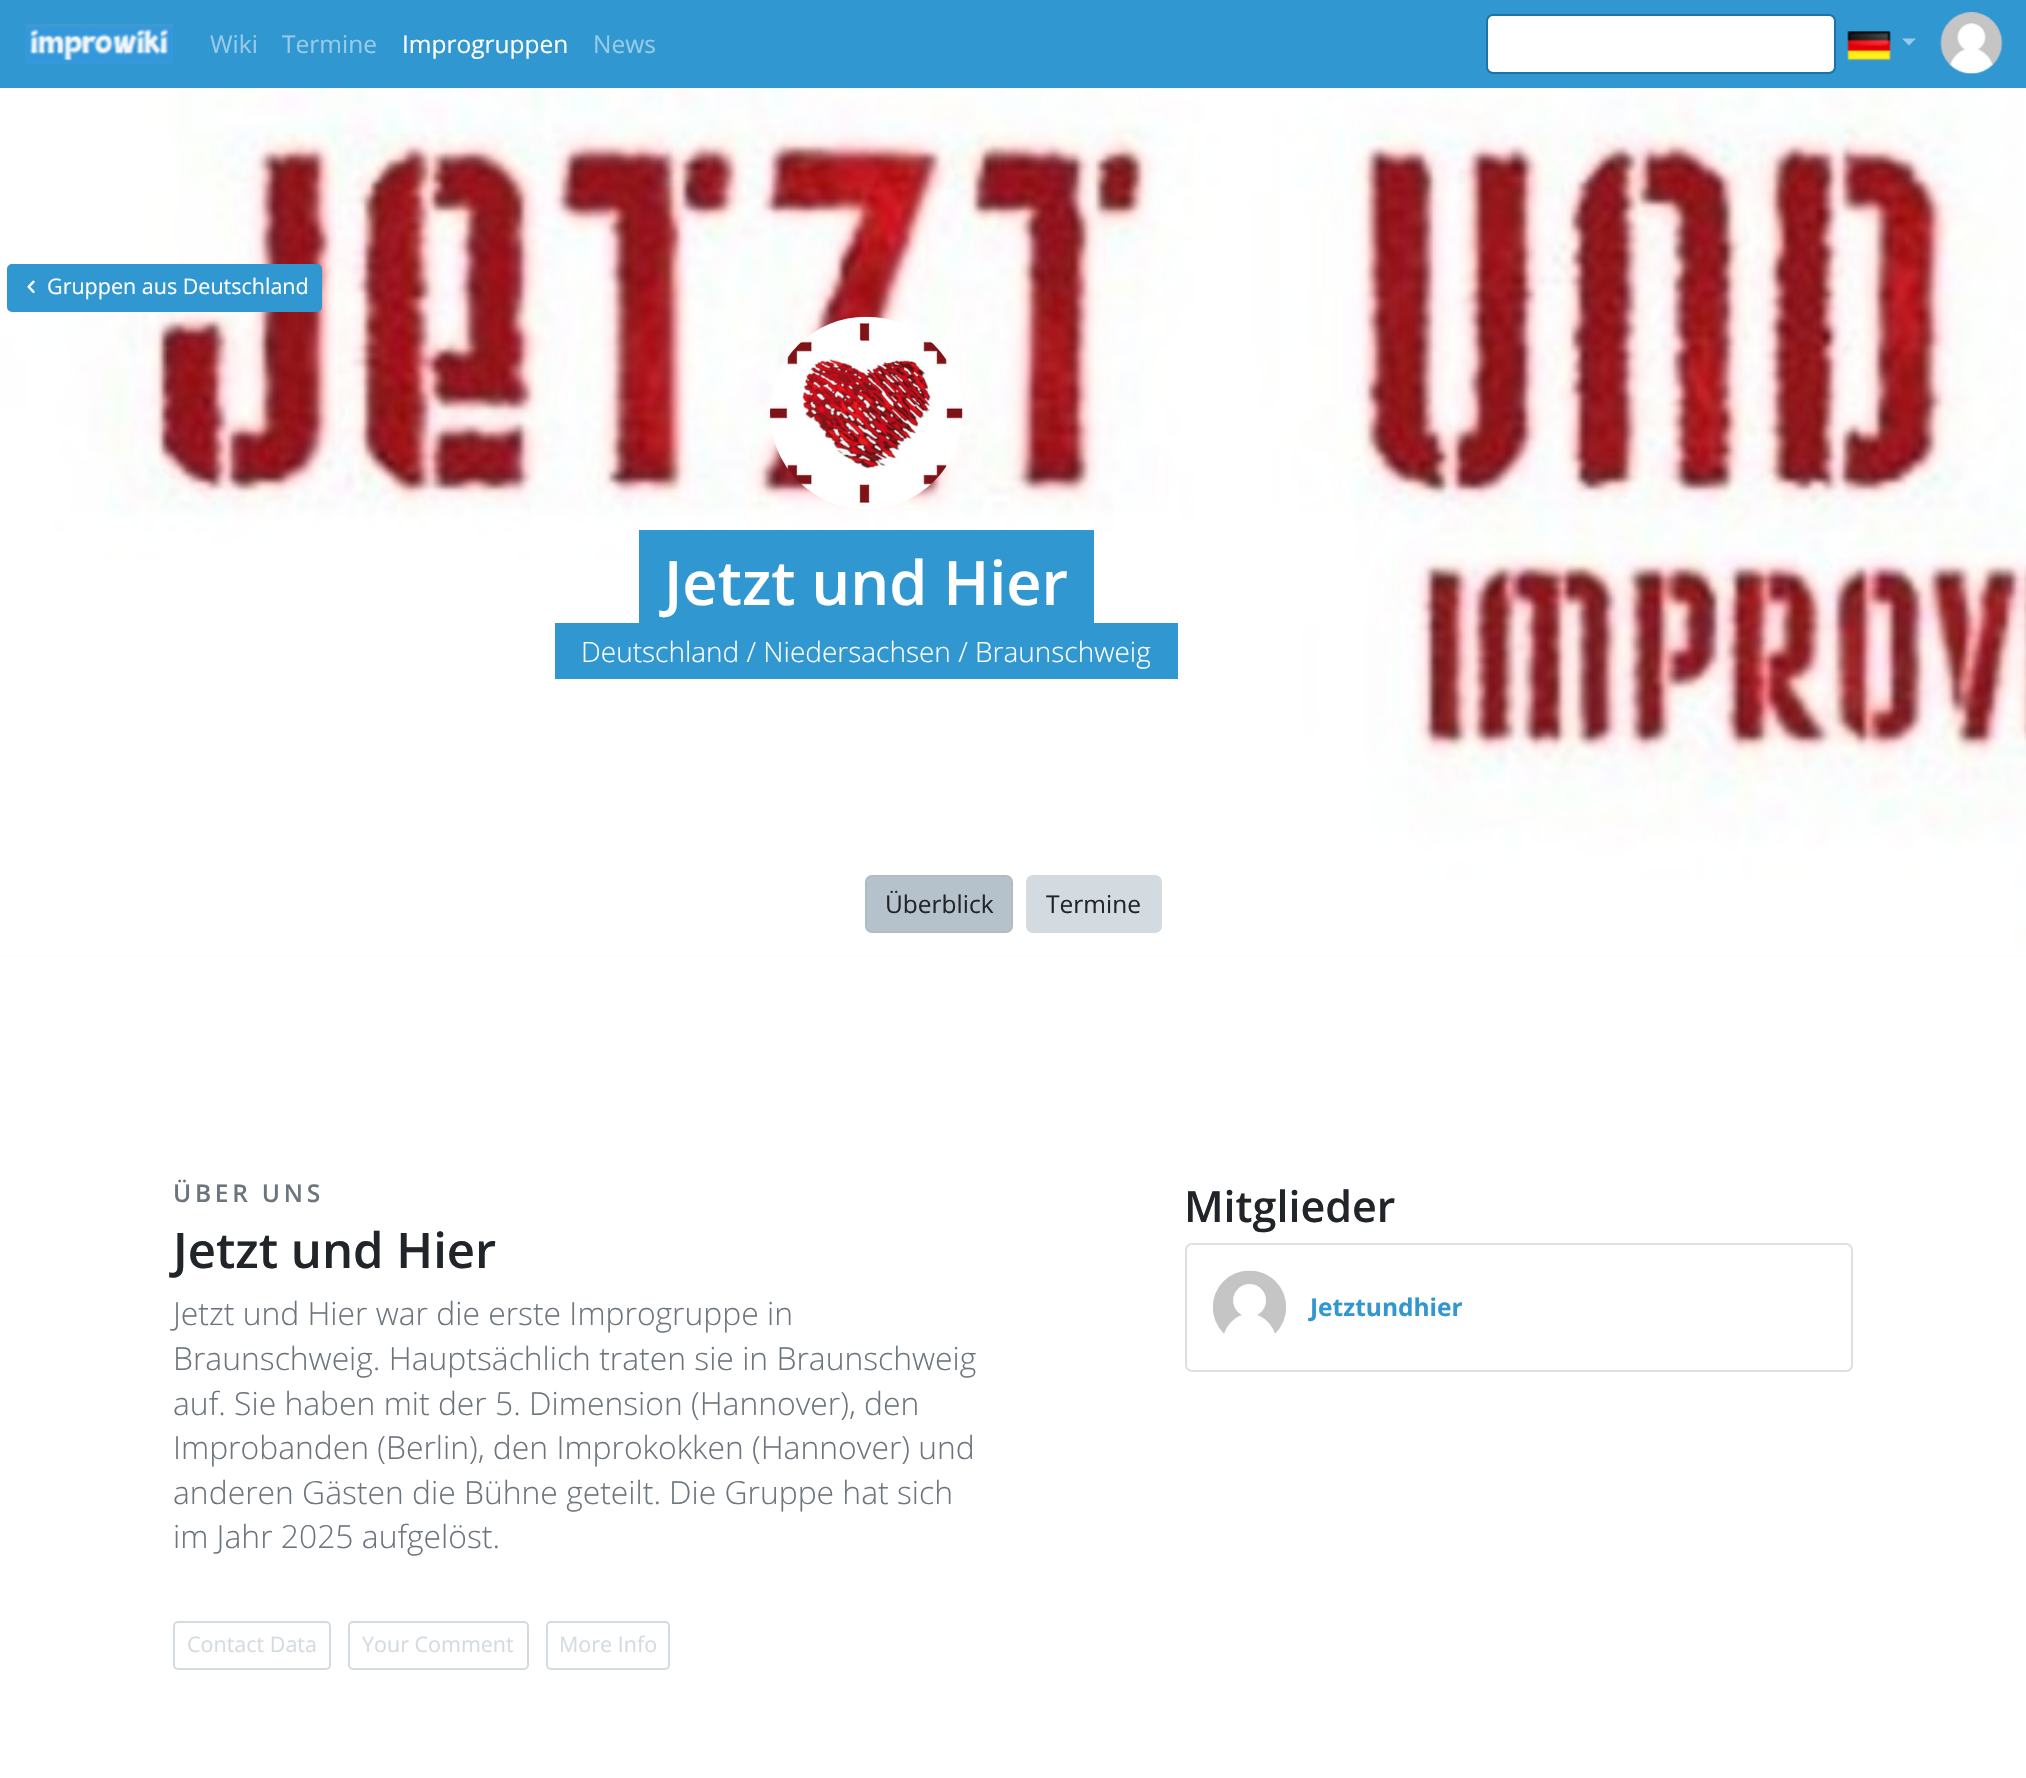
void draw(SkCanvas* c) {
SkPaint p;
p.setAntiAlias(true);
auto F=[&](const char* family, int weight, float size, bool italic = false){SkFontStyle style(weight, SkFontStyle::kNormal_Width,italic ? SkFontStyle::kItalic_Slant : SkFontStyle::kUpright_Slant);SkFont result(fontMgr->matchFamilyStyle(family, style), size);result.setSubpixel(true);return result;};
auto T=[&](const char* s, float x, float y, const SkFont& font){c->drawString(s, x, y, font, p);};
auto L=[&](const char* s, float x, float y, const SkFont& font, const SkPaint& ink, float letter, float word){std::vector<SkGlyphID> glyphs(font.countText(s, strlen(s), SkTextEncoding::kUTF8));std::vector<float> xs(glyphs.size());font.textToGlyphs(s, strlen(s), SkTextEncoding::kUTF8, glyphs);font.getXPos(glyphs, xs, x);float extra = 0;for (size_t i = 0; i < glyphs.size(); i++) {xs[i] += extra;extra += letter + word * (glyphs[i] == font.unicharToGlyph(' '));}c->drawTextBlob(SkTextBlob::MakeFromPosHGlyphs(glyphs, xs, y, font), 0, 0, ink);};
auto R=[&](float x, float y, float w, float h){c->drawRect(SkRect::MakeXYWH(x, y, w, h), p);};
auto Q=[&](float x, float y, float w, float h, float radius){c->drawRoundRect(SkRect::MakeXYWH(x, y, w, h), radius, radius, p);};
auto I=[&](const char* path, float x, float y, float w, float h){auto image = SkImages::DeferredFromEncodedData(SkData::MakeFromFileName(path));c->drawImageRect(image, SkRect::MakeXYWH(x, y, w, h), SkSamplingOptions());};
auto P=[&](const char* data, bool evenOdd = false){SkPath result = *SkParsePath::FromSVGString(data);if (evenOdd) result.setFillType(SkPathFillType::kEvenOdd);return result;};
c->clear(0xfff5f8fa);
p.setColor(0xff3097d1);
R(0,0,2026,88);
I("1.png",25,24,149,41);
auto f1 = F("Open Sans",400,24.5);
p.setColor(0xff98cbe8);
T("Wiki",210,53,f1);
T("Termine",282,53,f1);
p.setColor(0xffffffff);
T("Improgruppen",402,53,f1);
p.setColor(0xff98cbe8);
T("News",593,53,f1);
p.setColor(0xffffffff);
Q(1488,16,346,56,4);
p.setStroke(true);
p.setStrokeWidth(2);
p.setColor(0xff1c73a5);
c->drawRoundRect(SkRect::MakeXYWH(1487,15,348,58),6,6,p);
I("2.png",1847,31,44,30);
p.setStroke(false);
p.setColor(0xff98cbe8);
c->drawPath(P("M1902 38.5h14l-7 7z"),p);
I("3.png",1940,12,63,62);
I("4.png",0,88,2026,868);
p.setColor(0xff3097d1);
c->drawRoundRect(SkRect::MakeXYWH(8,265,313,46),4,4,p);
p.setStroke(true);
c->drawRoundRect(SkRect::MakeXYWH(8,265,313,46),4,4,p);
I("5.png",27,280,8,13);
auto f2 = F("Open Sans",400,21.5);
p.setStroke(false);
p.setColor(0xffffffff);
T("Gruppen aus Deutschland",47,294,f2);
I("6.png",770,316,193,193);
p.setColor(0xff3097d1);
R(639,530,455,93);
auto f3 = F("Open Sans",600,61.25);
p.setColor(0xffffffff);
T("Jetzt und Hier",664,605,f3);
p.setColor(0xff3097d1);
R(555,623,623,56);
auto f4 = F("Open Sans",300,28);
p.setColor(0xffffffff);
T("Deutschland / Niedersachsen / Braunschweig",581,662,f4);
p.setColor(0xffb6c2cb);
c->drawRoundRect(SkRect::MakeXYWH(866,876,146,56),6,6,p);
p.setStroke(true);
p.setColor(0xffafbcc5);
c->drawRoundRect(SkRect::MakeXYWH(866,876,146,56),6,6,p);
p.setStroke(false);
p.setColor(0xff212529);
T("Überblick",885,913,f1);
p.setColor(0xffffffff);
c->drawPath(P("M957 957h-35l18-17z"),p);
p.setColor(0xffd4dbe0);
c->drawRoundRect(SkRect::MakeXYWH(1027,876,134,56),6,6,p);
p.setStroke(true);
c->drawRoundRect(SkRect::MakeXYWH(1027,876,134,56),6,6,p);
p.setStroke(false);
p.setColor(0xff212529);
T("Termine",1046,913,f1);
p.setColor(0xffffffff);
R(0,956,2026,822);
auto f5 = F("Open Sans",600,24.5);
p.setColor(0xff6c757d);
L("ÜBER UNS",173,1202,f5,p,3.75,0);
auto f6 = F("Open Sans",600,49);
p.setColor(0xff212529);
T("Jetzt und Hier",173,1268,f6);
auto f7 = F("Open Sans",300,31.85);
p.setColor(0xff6c757d);
T("Jetzt und Hier war die erste Improgruppe in",173,1325,f7);
T("Braunschweig. Hauptsächlich traten sie in Braunschweig",173,1370,f7);
T("auf. Sie haben mit der 5. Dimension (Hannover), den",173,1415,f7);
T("Improbanden (Berlin), den Improkokken (Hannover) und",173,1459,f7);
T("anderen Gästen die Bühne geteilt.",173,1504,f7);
T("Die Gruppe hat sich",669,1504,f7);
T("im Jahr 2025 aufgelöst.",173,1548,f7);
auto f8 = F("Open Sans",600,43);
p.setColor(0xff212529);
T("Mitglieder",1184,1222,f8);
p.setStroke(true);
p.setColor(0xffdfdfdf);
c->drawRoundRect(SkRect::MakeXYWH(1186,1244,666,127),6,6,p);
I("7.png",1212,1270,74,64);
auto f9 = F("Open Sans",700,24.5);
p.setStroke(false);
p.setColor(0xff3097d1);
T("Jetztundhier",1310,1316,f9);
p.setStroke(true);
p.setColor(0xffd4dbe0);
c->drawRoundRect(SkRect::MakeXYWH(174,1622,156,47),4,4,p);
p.setStroke(false);
T("Contact Data",187,1652,f2);
p.setStroke(true);
c->drawRoundRect(SkRect::MakeXYWH(349,1622,179,47),4,4,p);
p.setStroke(false);
T("Your Comment",362,1652,f2);
p.setStroke(true);
c->drawRoundRect(SkRect::MakeXYWH(547,1622,122,47),4,4,p);
p.setStroke(false);
T("More Info",559,1652,f2);
}
